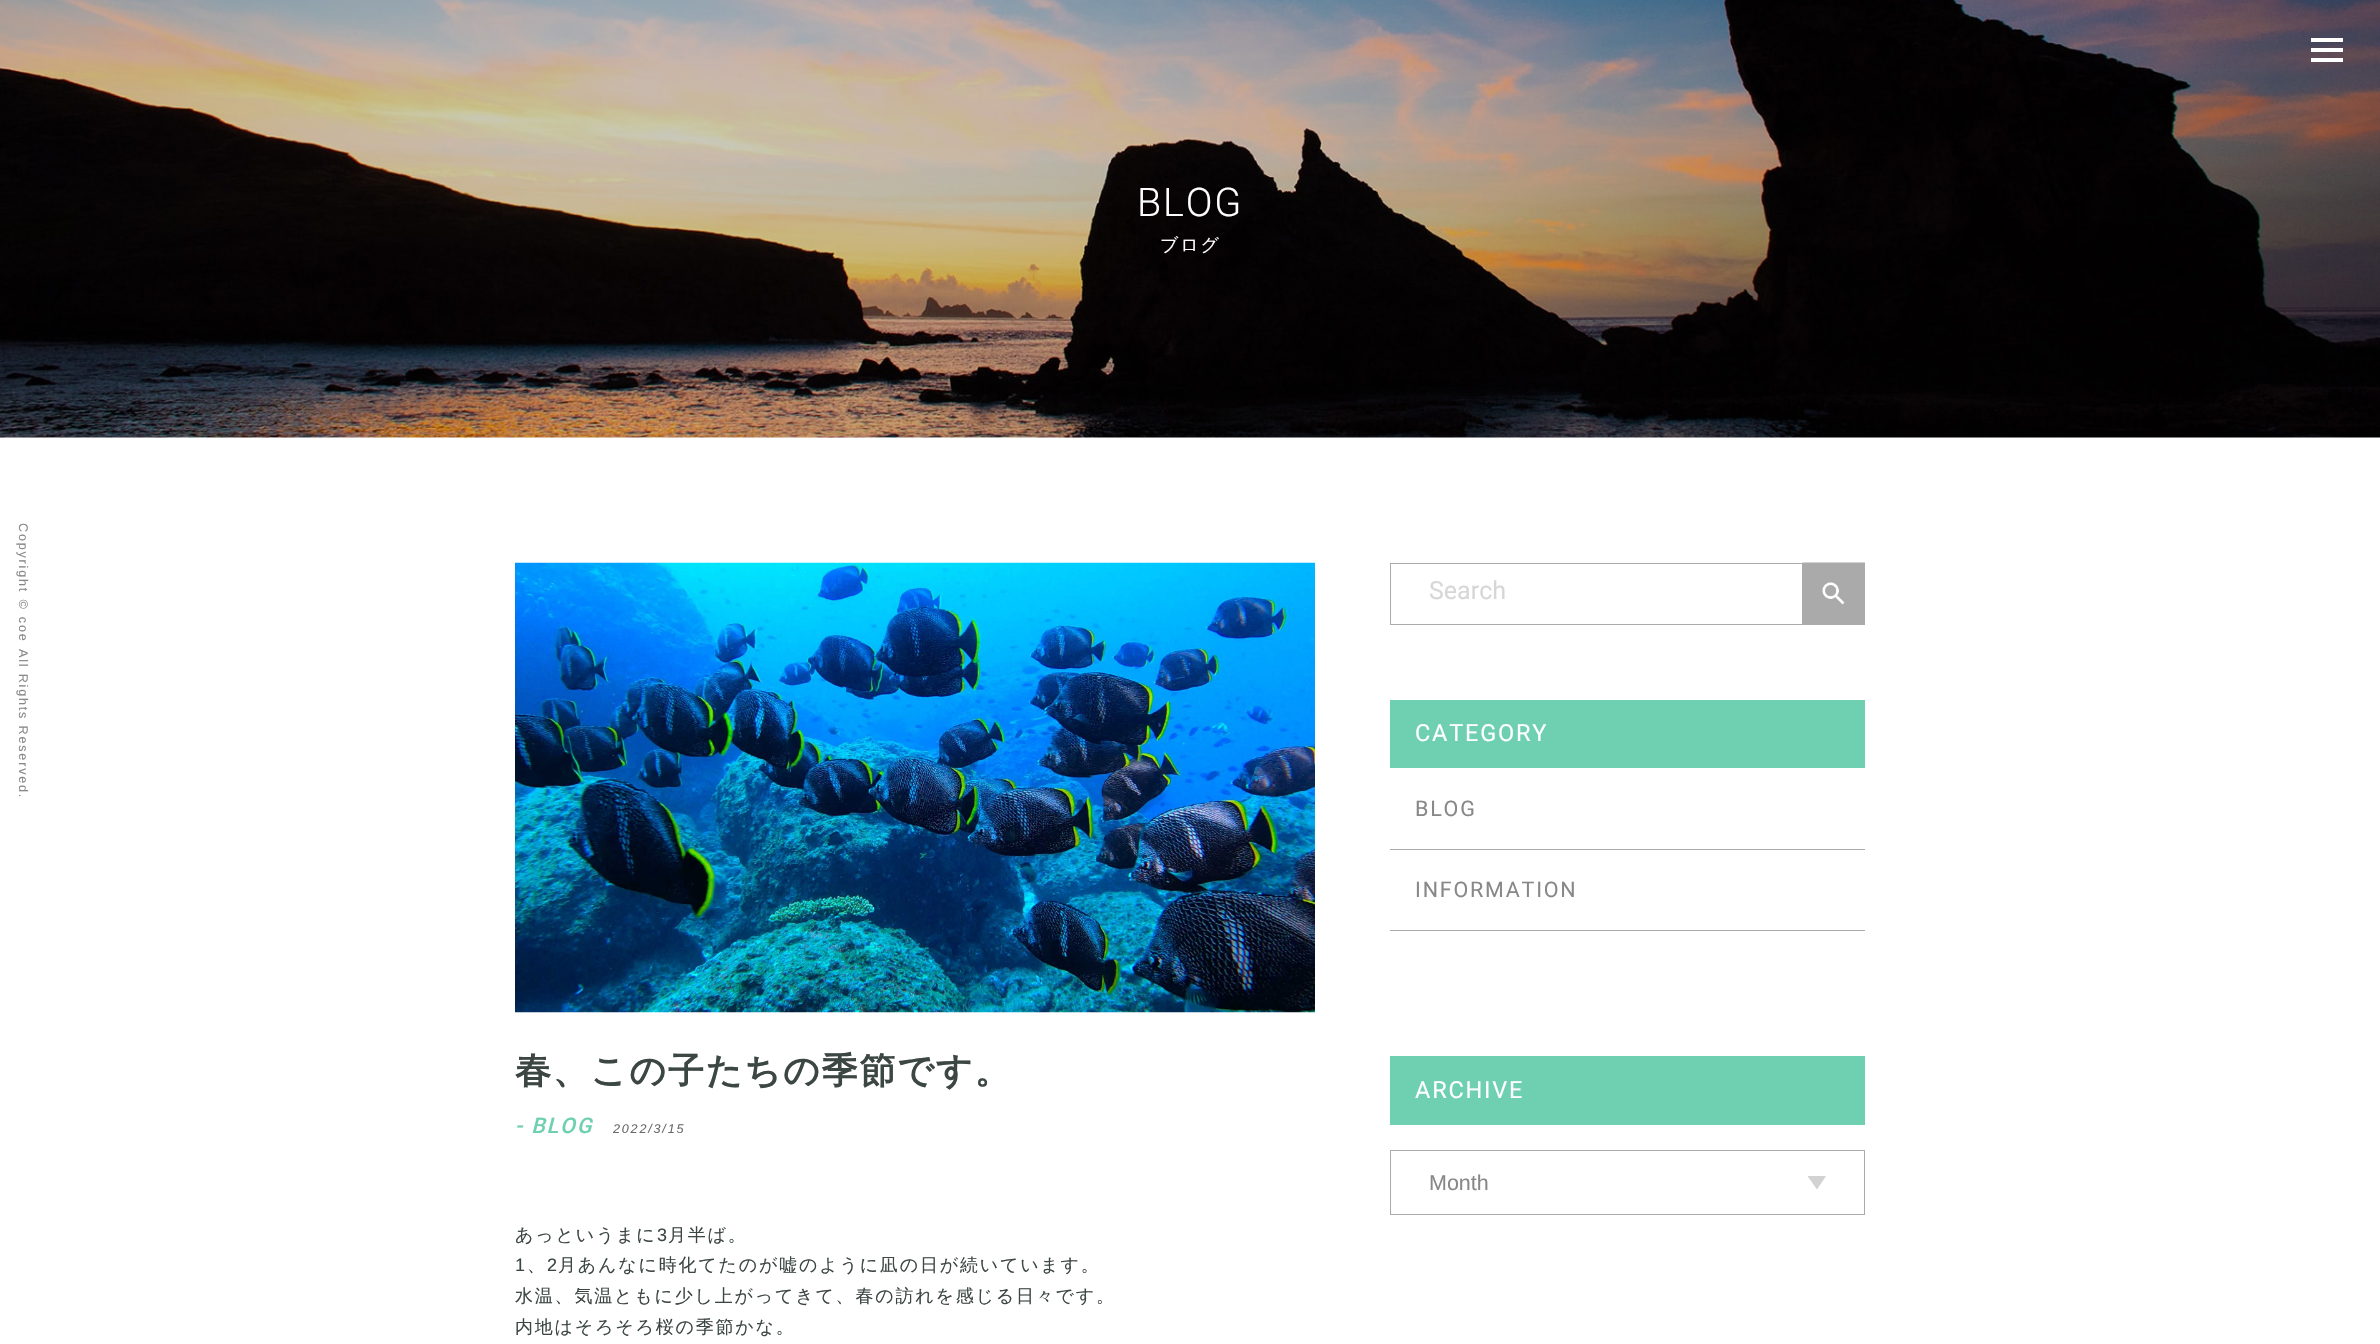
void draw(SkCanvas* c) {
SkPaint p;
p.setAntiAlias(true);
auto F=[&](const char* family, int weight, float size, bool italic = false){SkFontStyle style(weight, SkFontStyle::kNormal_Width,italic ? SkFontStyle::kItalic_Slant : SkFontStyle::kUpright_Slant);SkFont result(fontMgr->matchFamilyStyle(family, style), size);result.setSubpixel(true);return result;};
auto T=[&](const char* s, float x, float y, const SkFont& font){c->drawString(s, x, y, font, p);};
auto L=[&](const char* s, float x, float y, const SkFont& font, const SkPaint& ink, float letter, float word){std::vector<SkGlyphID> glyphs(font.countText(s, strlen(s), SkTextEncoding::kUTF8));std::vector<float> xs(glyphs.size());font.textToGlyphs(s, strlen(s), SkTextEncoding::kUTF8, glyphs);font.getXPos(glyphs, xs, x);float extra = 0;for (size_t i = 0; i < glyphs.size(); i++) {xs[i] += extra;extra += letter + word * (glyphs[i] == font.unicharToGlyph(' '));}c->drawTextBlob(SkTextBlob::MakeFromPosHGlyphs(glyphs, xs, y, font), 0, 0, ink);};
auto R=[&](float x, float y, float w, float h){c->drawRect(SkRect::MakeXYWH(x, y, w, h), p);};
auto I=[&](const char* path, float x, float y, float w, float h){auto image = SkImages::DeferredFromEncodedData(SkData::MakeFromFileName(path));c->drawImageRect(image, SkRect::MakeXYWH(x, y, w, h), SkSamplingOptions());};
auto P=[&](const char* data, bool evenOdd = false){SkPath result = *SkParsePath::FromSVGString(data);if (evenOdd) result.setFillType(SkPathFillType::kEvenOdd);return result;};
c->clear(0xffffffff);
I("1.png",0,0,2380,438);
p.setColor(0xffffffff);
R(2311,38,32,4);
R(2311,48,32,4);
R(2311,58,32,4);
auto f1 = F("Liberation Sans",400,12.6);
p.setColor(0xff888888);
c->save();
c->rotate(90,19,523);
L("Copyright © coe",19,523,f1,p,1.8,1);
c->restore();
c->save();
c->rotate(90,19,649);
L("All Rights Reserved.",19,649,f1,p,1.8,0);
c->restore();
auto f2 = F("Roboto",300,39.5);
p.setColor(0xffffffff);
L("BLOG",1137,216,f2,p,1.8,0);
auto f3 = F("WenQuanYi Zen Hei",500,18);
L("ブログ",1160,251,f3,p,1.8,0);
I("2.png",515,562,800,451);
auto f4 = F("WenQuanYi Zen Hei",700,36);
p.setColor(0xff3c4643);
L("春、この子たちの季節です。",515,1083,f4,p,1.8,0);
auto f5 = F("Roboto",500,21.5,true);
p.setColor(0xff6fd0b1);
L("- BLOG",515,1133,f5,p,1.8,0);
auto f6 = F("Liberation Sans",400,12.6,true);
p.setColor(0xff696969);
L("2022/3/15",613,1133,f6,p,1.8,0);
p.setColor(0xff3c4643);
L("あっというまに",515,1241,f3,p,1.8,0);
auto f7 = F("Liberation Sans",400,18);
L("3",657,1241,f7,p,1.8,0);
L("月半ば。",668,1241,f3,p,1.8,0);
L("1",515,1271,f7,p,1.8,0);
L("2",547,1271,f7,p,1.8,0);
L("月あんなに時化てたのが嘘のように凪の日が続いています。",558,1271,f3,p,1.8,0);
L("、",527,1271,f3,p,1.8,0);
L("水温、気温ともに少し上がってきて、春の訪れを感じる日々です。",515,1302,f3,p,1.8,0);
L("内地はそろそろ桜の季節かな。",515,1333,f3,p,1.8,0);
p.setStroke(true);
p.setStrokeWidth(1);
p.setColor(0xffaaaaaa);
c->drawRect(SkRect::MakeXYWH(1390.5,563.5,412,61),p);
auto f8 = F("Roboto",400,25);
p.setStroke(false);
p.setColor(0xffd7d7d7);
T("Search",1429,599,f8);
I("3.png",1802,562,63,63);
p.setColor(0xff6fd0b1);
R(1390,700,475,68);
auto f9 = F("Roboto",400,23.5);
p.setColor(0xffffffff);
L("CATEGORY",1415,741,f9,p,1.8,0);
p.setColor(0xffaaaaaa);
R(1390,849,475,1);
auto f10 = F("Roboto",400,21.5);
p.setColor(0xff888888);
L("BLOG",1415,816,f10,p,1.8,0);
p.setColor(0xffaaaaaa);
R(1390,930,475,1);
p.setColor(0xff888888);
L("INFORMATION",1415,897,f10,p,1.8,0);
p.setColor(0xff6fd0b1);
R(1390,1056,475,69);
p.setColor(0xffffffff);
L("ARCHIVE",1415,1098,f9,p,1.8,0);
c->save();
c->clipRect(SkRect::MakeXYWH(1808,1176,18,13));
p.setColor(0xffd2d2d2);
c->drawPath(P("M1817 1189.5l-9.5-13.5h18.5z",true),p);
c->restore();
p.setStroke(true);
p.setColor(0xffaaaaaa);
c->drawRect(SkRect::MakeXYWH(1390.5,1150.5,474,64),p);
auto f11 = F("Liberation Sans",400,21.5);
p.setStroke(false);
p.setColor(0xff888888);
T("Month",1429,1190,f11);
}
